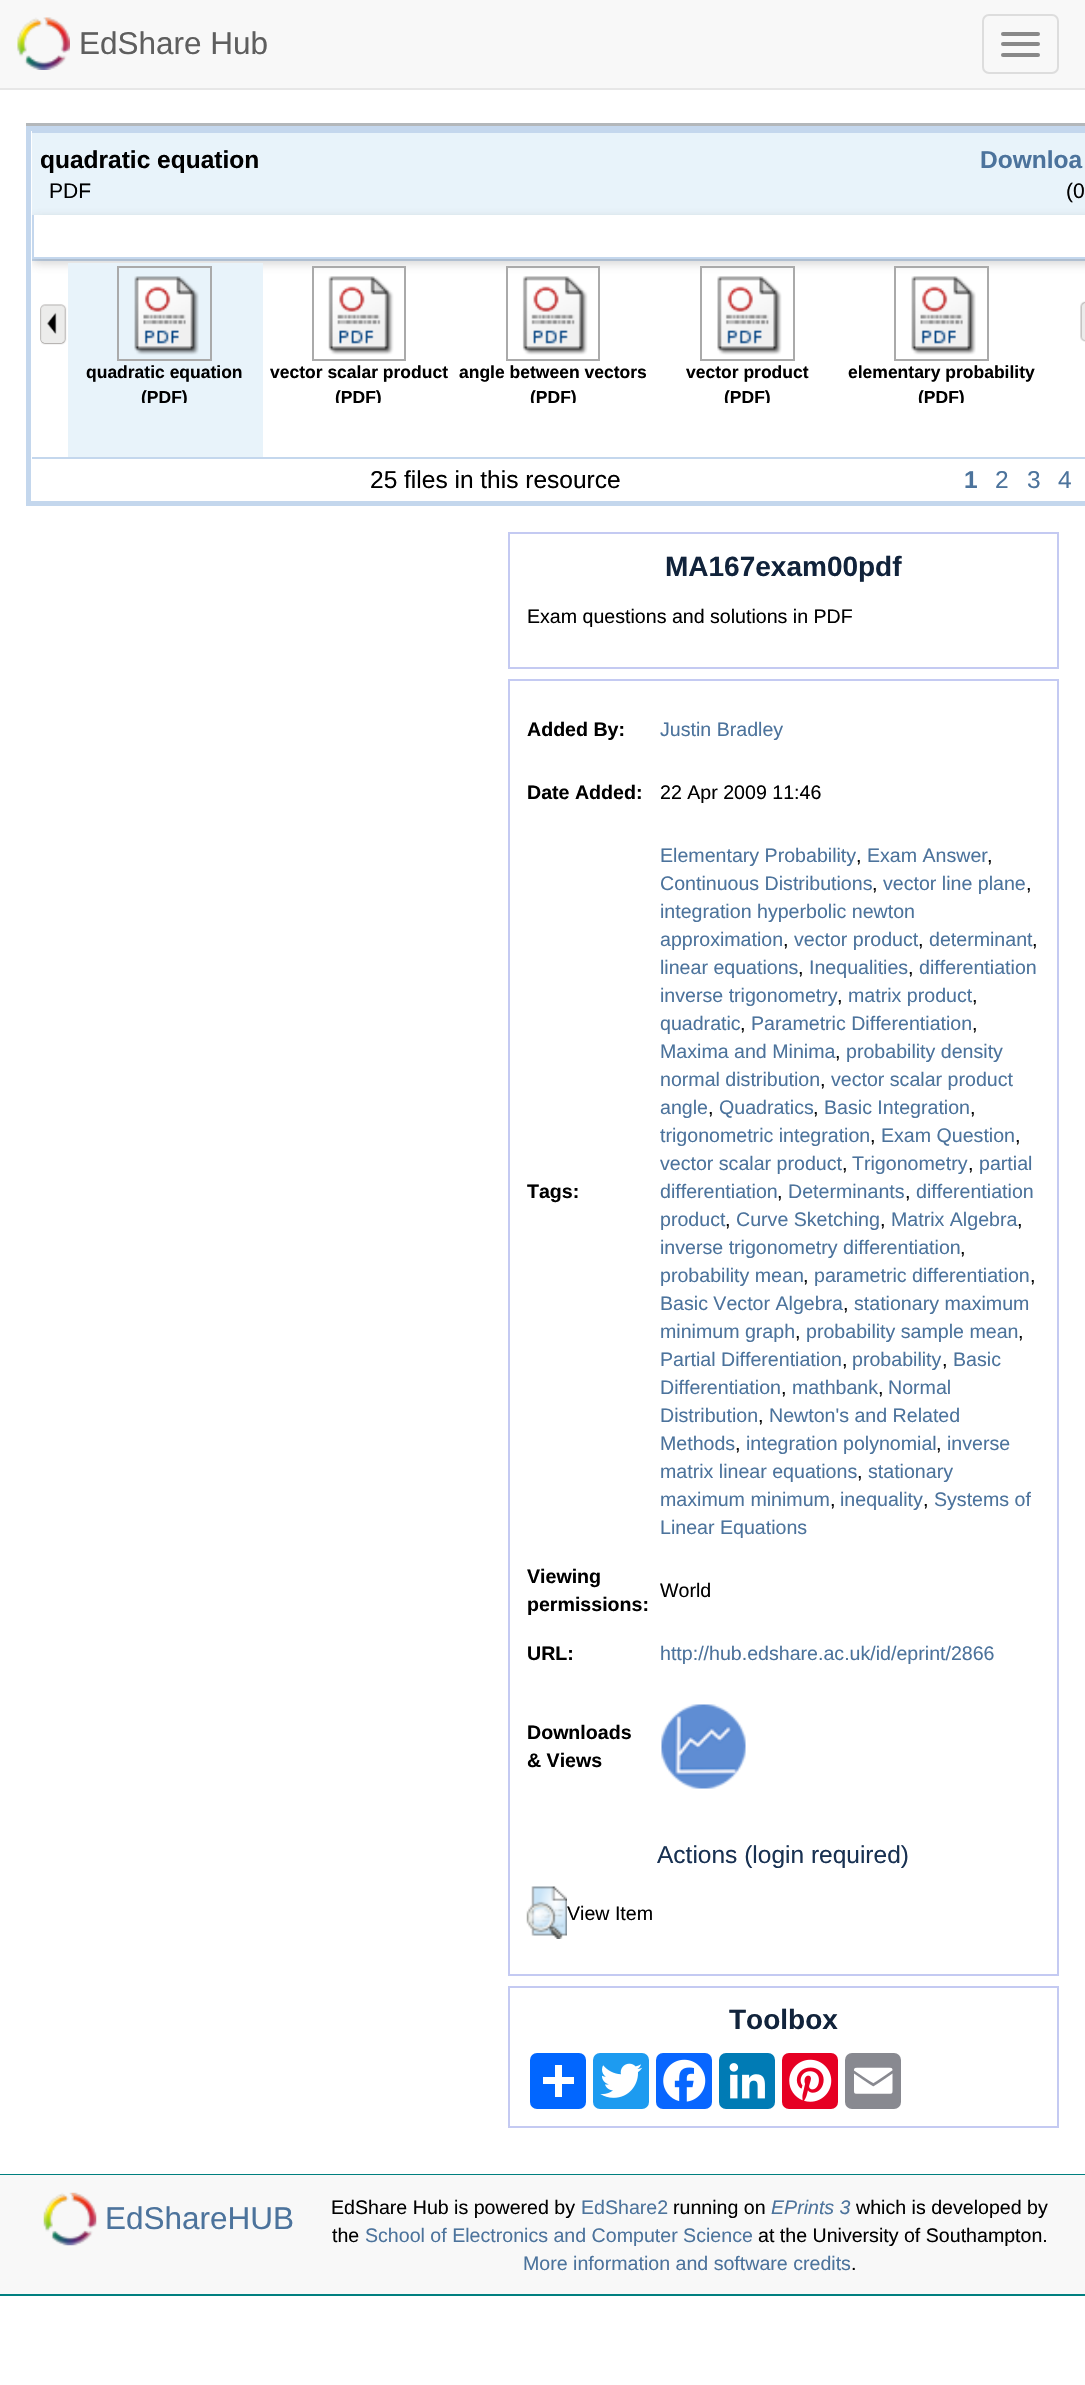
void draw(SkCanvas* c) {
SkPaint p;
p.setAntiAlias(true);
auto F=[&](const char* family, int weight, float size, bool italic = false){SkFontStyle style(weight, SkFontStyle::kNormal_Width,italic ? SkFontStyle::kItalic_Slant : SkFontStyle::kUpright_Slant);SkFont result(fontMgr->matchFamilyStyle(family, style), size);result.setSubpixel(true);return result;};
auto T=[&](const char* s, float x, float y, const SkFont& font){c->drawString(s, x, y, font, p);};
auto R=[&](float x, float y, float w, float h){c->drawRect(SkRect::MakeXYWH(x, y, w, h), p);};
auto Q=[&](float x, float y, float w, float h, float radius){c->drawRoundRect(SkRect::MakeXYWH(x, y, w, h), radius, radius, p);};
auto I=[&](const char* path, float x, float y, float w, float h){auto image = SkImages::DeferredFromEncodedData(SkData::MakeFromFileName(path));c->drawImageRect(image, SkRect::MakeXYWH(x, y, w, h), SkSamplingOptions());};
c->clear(0xffffffff);
p.setColor(0xfff8f8f8);
R(0,0,1085,88);
p.setColor(0xffe7e7e7);
R(0,88,1085,2);
I("1.png",17,17,53,53);
auto f1 = F("Liberation Sans",400,31.5);
p.setColor(0xff5e5e5e);
T("EdShare Hub",79,54,f1);
p.setStroke(true);
p.setStrokeWidth(2);
p.setColor(0xffdddddd);
c->drawRoundRect(SkRect::MakeXYWH(983,15,75,58),6,6,p);
p.setStroke(false);
p.setColor(0xff888888);
Q(1001,32,39,4,2);
Q(1001,42,39,4,2);
Q(1001,53,39,4,2);
p.setColor(0xffb3b7ba);
R(26,123,1059,3);
p.setStroke(true);
p.setStrokeWidth(5);
p.setColor(0xffc4d7ed);
c->drawRect(SkRect::MakeXYWH(28.5,128.5,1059,375),p);
p.setStroke(false);
p.setColor(0xffe8f3fa);
R(32,133,1053,82);
p.setColor(0xffc4d7ed);
R(32,259,1053,2);
R(32,131,1053,2);
auto f2 = F("Liberation Sans",700,24.5);
p.setColor(0xff000000);
T("quadratic equation",40,168,f2);
auto f3 = F("Liberation Sans",400,21);
T("PDF",49,198,f3);
p.setColor(0xff4c739c);
T("Downloa",980,168,f2);
p.setColor(0xff000000);
T("(0",1066,198,f3);
c->save();
c->clipRect(SkRect::MakeXYWH(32,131,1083,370));
p.setColor(0x4d646464);
p.setMaskFilter(SkMaskFilter::MakeBlur(kNormal_SkBlurStyle, 5));
c->drawRect(SkRect::MakeXYWH(32,219,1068,44),p);
p.setMaskFilter(nullptr);
c->restore();
p.setColor(0xffffffff);
R(34,215,1051,42);
p.setColor(0xffc4d7ed);
R(32,257,1053,2);
R(32,215,2,44);
I("2.png",40,304,27,41);
I("3.png",1080,301,5,41);
p.setColor(0xffe8f3fa);
R(68,263,195,194);
p.setStroke(true);
p.setStrokeWidth(2);
p.setColor(0xffaaaaaa);
c->drawRect(SkRect::MakeXYWH(118,267,93,93),p);
I("4.png",134,276,65,79);
auto f4 = F("Liberation Sans",700,17.5);
p.setStroke(false);
p.setColor(0xff000000);
T("quadratic equation",86,378,f4);
c->save();
c->clipRect(SkRect::MakeXYWH(70,361,191,42));
T("(PDF)",141,403,f4);
c->restore();
p.setStroke(true);
p.setColor(0xffaaaaaa);
c->drawRect(SkRect::MakeXYWH(313,267,92,93),p);
I("5.png",328,276,66,79);
p.setStroke(false);
p.setColor(0xff000000);
T("vector scalar product",270,378,f4);
c->save();
c->clipRect(SkRect::MakeXYWH(264,361,191,42));
T("(PDF)",335,403,f4);
c->restore();
p.setStroke(true);
p.setColor(0xffaaaaaa);
c->drawRect(SkRect::MakeXYWH(507,267,92,93),p);
I("6.png",522,276,66,79);
p.setStroke(false);
p.setColor(0xff000000);
T("angle between vectors",459,378,f4);
c->save();
c->clipRect(SkRect::MakeXYWH(459,361,190,42));
T("(PDF)",530,403,f4);
c->restore();
p.setStroke(true);
p.setColor(0xffaaaaaa);
c->drawRect(SkRect::MakeXYWH(701,267,93,93),p);
I("7.png",717,276,65,79);
p.setStroke(false);
p.setColor(0xff000000);
T("vector product",686,378,f4);
c->save();
c->clipRect(SkRect::MakeXYWH(653,361,191,42));
T("(PDF)",724,403,f4);
c->restore();
p.setStroke(true);
p.setColor(0xffaaaaaa);
c->drawRect(SkRect::MakeXYWH(895,267,93,93),p);
I("8.png",911,276,65,79);
p.setStroke(false);
p.setColor(0xff000000);
T("elementary probability",848,378,f4);
c->save();
c->clipRect(SkRect::MakeXYWH(847,361,191,42));
T("(PDF)",918,403,f4);
c->restore();
p.setColor(0xffc4d7ed);
R(32,457,1053,2);
auto f5 = F("Liberation Sans",400,24.5);
p.setColor(0xff000000);
T("25 files in this resource",370,488,f5);
p.setColor(0xff4c739c);
T("1",964,488,f2);
T("2",995,488,f5);
T("3",1027,488,f5);
T("4",1058,488,f5);
p.setStroke(true);
p.setColor(0xffc4caf2);
c->drawRect(SkRect::MakeXYWH(509,533,549,135),p);
auto f6 = F("Liberation Sans",700,28);
p.setStroke(false);
p.setColor(0xff11233b);
T("MA167exam00pdf",665,576,f6);
auto f7 = F("Liberation Sans",400,19.6);
p.setColor(0xff000000);
T("Exam questions and solutions in PDF",527,623,f7);
p.setStroke(true);
p.setColor(0xffc4caf2);
c->drawRect(SkRect::MakeXYWH(509,680,549,1295),p);
auto f8 = F("Liberation Sans",700,19.6);
p.setStroke(false);
p.setColor(0xff000000);
T("Added By:",527,736,f8);
p.setColor(0xff4c739c);
T("Justin Bradley",660,736,f7);
p.setColor(0xff000000);
T("Date Added:",527,799,f8);
T("22 Apr 2009 11:46",660,799,f7);
T("Tags:",527,1198,f8);
p.setColor(0xff4c739c);
T("Elementary Probability",660,862,f7);
p.setColor(0xff000000);
T(",",856,862,f7);
p.setColor(0xff4c739c);
T("Exam Answer",867,862,f7);
p.setColor(0xff000000);
T(",",987,862,f7);
p.setColor(0xff4c739c);
T("Continuous Distributions",660,890,f7);
p.setColor(0xff000000);
T(",",872,890,f7);
p.setColor(0xff4c739c);
T("vector line plane",883,890,f7);
p.setColor(0xff000000);
T(",",1026,890,f7);
p.setColor(0xff4c739c);
T("integration hyperbolic newton",660,918,f7);
T("approximation",660,946,f7);
p.setColor(0xff000000);
T(",",783,946,f7);
p.setColor(0xff4c739c);
T("vector product",794,946,f7);
p.setColor(0xff000000);
T(",",918,946,f7);
p.setColor(0xff4c739c);
T("determinant",929,946,f7);
p.setColor(0xff000000);
T(",",1032,946,f7);
p.setColor(0xff4c739c);
T("linear equations",660,974,f7);
p.setColor(0xff000000);
T(",",798,974,f7);
p.setColor(0xff4c739c);
T("Inequalities",809,974,f7);
p.setColor(0xff000000);
T(",",908,974,f7);
p.setColor(0xff4c739c);
T("differentiation",919,974,f7);
T("inverse trigonometry",660,1002,f7);
p.setColor(0xff000000);
T(",",837,1002,f7);
p.setColor(0xff4c739c);
T("matrix product",848,1002,f7);
p.setColor(0xff000000);
T(",",972,1002,f7);
p.setColor(0xff4c739c);
T("quadratic",660,1030,f7);
p.setColor(0xff000000);
T(",",740,1030,f7);
p.setColor(0xff4c739c);
T("Parametric Differentiation",751,1030,f7);
p.setColor(0xff000000);
T(",",972,1030,f7);
p.setColor(0xff4c739c);
T("Maxima and Minima",660,1058,f7);
p.setColor(0xff000000);
T(",",835,1058,f7);
p.setColor(0xff4c739c);
T("probability density",846,1058,f7);
T("normal distribution",660,1086,f7);
p.setColor(0xff000000);
T(",",820,1086,f7);
p.setColor(0xff4c739c);
T("vector scalar product",831,1086,f7);
T("angle",660,1114,f7);
p.setColor(0xff000000);
T(",",708,1114,f7);
p.setColor(0xff4c739c);
T("Quadratics",719,1114,f7);
p.setColor(0xff000000);
T(",",813,1114,f7);
p.setColor(0xff4c739c);
T("Basic Integration",824,1114,f7);
p.setColor(0xff000000);
T(",",970,1114,f7);
p.setColor(0xff4c739c);
T("trigonometric integration",660,1142,f7);
p.setColor(0xff000000);
T(",",870,1142,f7);
p.setColor(0xff4c739c);
T("Exam Question",881,1142,f7);
p.setColor(0xff000000);
T(",",1015,1142,f7);
p.setColor(0xff4c739c);
T("vector scalar product",660,1170,f7);
p.setColor(0xff000000);
T(",",842,1170,f7);
p.setColor(0xff4c739c);
T("Trigonometry",852,1170,f7);
p.setColor(0xff000000);
T(",",968,1170,f7);
p.setColor(0xff4c739c);
T("partial",979,1170,f7);
T("differentiation",660,1198,f7);
p.setColor(0xff000000);
T(",",777,1198,f7);
p.setColor(0xff4c739c);
T("Determinants",788,1198,f7);
p.setColor(0xff000000);
T(",",905,1198,f7);
p.setColor(0xff4c739c);
T("differentiation",916,1198,f7);
T("product",660,1226,f7);
p.setColor(0xff000000);
T(",",725,1226,f7);
p.setColor(0xff4c739c);
T("Curve Sketching",736,1226,f7);
p.setColor(0xff000000);
T(",",880,1226,f7);
p.setColor(0xff4c739c);
T("Matrix Algebra",891,1226,f7);
p.setColor(0xff000000);
T(",",1017,1226,f7);
p.setColor(0xff4c739c);
T("inverse trigonometry differentiation",660,1254,f7);
p.setColor(0xff000000);
T(",",960,1254,f7);
p.setColor(0xff4c739c);
T("probability mean",660,1282,f7);
p.setColor(0xff000000);
T(",",803,1282,f7);
p.setColor(0xff4c739c);
T("parametric differentiation",814,1282,f7);
p.setColor(0xff000000);
T(",",1030,1282,f7);
p.setColor(0xff4c739c);
T("Basic Vector Algebra",660,1310,f7);
p.setColor(0xff000000);
T(",",843,1310,f7);
p.setColor(0xff4c739c);
T("stationary maximum",854,1310,f7);
T("minimum graph",660,1338,f7);
p.setColor(0xff000000);
T(",",795,1338,f7);
p.setColor(0xff4c739c);
T("probability sample mean",806,1338,f7);
p.setColor(0xff000000);
T(",",1018,1338,f7);
p.setColor(0xff4c739c);
T("Partial Differentiation",660,1366,f7);
p.setColor(0xff000000);
T(",",842,1366,f7);
p.setColor(0xff4c739c);
T("probability",852,1366,f7);
p.setColor(0xff000000);
T(",",942,1366,f7);
p.setColor(0xff4c739c);
T("Basic",953,1366,f7);
T("Differentiation",660,1394,f7);
p.setColor(0xff000000);
T(",",781,1394,f7);
p.setColor(0xff4c739c);
T("mathbank",792,1394,f7);
p.setColor(0xff000000);
T(",",878,1394,f7);
p.setColor(0xff4c739c);
T("Normal",888,1394,f7);
T("Distribution",660,1422,f7);
p.setColor(0xff000000);
T(",",758,1422,f7);
p.setColor(0xff4c739c);
T("Newton's and Related",769,1422,f7);
T("Methods",660,1450,f7);
p.setColor(0xff000000);
T(",",735,1450,f7);
p.setColor(0xff4c739c);
T("integration polynomial",746,1450,f7);
p.setColor(0xff000000);
T(",",936,1450,f7);
p.setColor(0xff4c739c);
T("inverse",947,1450,f7);
T("matrix linear equations",660,1478,f7);
p.setColor(0xff000000);
T(",",857,1478,f7);
p.setColor(0xff4c739c);
T("stationary",868,1478,f7);
T("maximum minimum",660,1506,f7);
p.setColor(0xff000000);
T(",",830,1506,f7);
p.setColor(0xff4c739c);
T("inequality",840,1506,f7);
p.setColor(0xff000000);
T(",",923,1506,f7);
p.setColor(0xff4c739c);
T("Systems of",934,1506,f7);
T("Linear Equations",660,1534,f7);
p.setColor(0xff000000);
T("Viewing",527,1583,f8);
T("permissions:",527,1611,f8);
T("World",660,1597,f7);
T("URL:",527,1660,f8);
p.setColor(0xff4c739c);
T("http://hub.edshare.ac.uk/id/eprint/2866",660,1660,f7);
p.setColor(0xff000000);
T("Downloads",527,1739,f8);
T("& Views",527,1767,f8);
I("9.png",661,1704,85,85);
p.setColor(0xff183152);
T("Actions (login required)",657,1863,f5);
I("10.png",526,1886,41,53);
p.setColor(0xff000000);
T("View Item",567,1920,f7);
p.setStroke(true);
p.setColor(0xffc4caf2);
c->drawRect(SkRect::MakeXYWH(509,1987,549,140),p);
p.setStroke(false);
p.setColor(0xff11233b);
T("Toolbox",729,2029,f6);
p.setColor(0xff0166ff);
Q(530,2053,56,56,7);
p.setColor(0xffffffff);
R(555,2065,7,32);
R(543,2077,31,7);
p.setColor(0xff1d9bf0);
Q(593,2053,56,56,7);
I("11.png",600,2063,43,35);
p.setColor(0xff0866ff);
Q(656,2053,56,56,7);
I("12.png",663,2059,43,43);
p.setColor(0xff007bb5);
Q(719,2053,56,56,7);
I("13.png",729,2063,36,36);
p.setColor(0xffe60023);
Q(782,2053,56,56,7);
I("14.png",789,2059,43,43);
p.setColor(0xff888990);
Q(845,2053,56,56,7);
I("15.png",854,2067,39,27);
p.setColor(0xff008080);
R(0,2174,1085,1);
p.setColor(0xfff8f8f8);
R(0,2175,1085,119);
I("16.png",43,2192,54,54);
p.setColor(0xff4c739c);
T("EdShareHUB",105,2229,f1);
p.setColor(0xff000000);
T("EdShare Hub is powered by",331,2214,f7);
p.setColor(0xff4c739c);
T("EdShare2",581,2214,f7);
p.setColor(0xff000000);
T("running on",673,2214,f7);
auto f9 = F("Liberation Sans",400,19.6,true);
p.setColor(0xff4c739c);
T("EPrints 3",771,2214,f9);
p.setColor(0xff000000);
T("which is developed by",856,2214,f7);
T("the",332,2242,f7);
p.setColor(0xff4c739c);
T("School of Electronics and Computer Science",365,2242,f7);
p.setColor(0xff000000);
T("at the University of Southampton.",758,2242,f7);
p.setColor(0xff4c739c);
T("More information and software credits",523,2270,f7);
p.setColor(0xff000000);
T(".",851,2270,f7);
p.setColor(0xff008080);
R(0,2294,1085,2);
}
